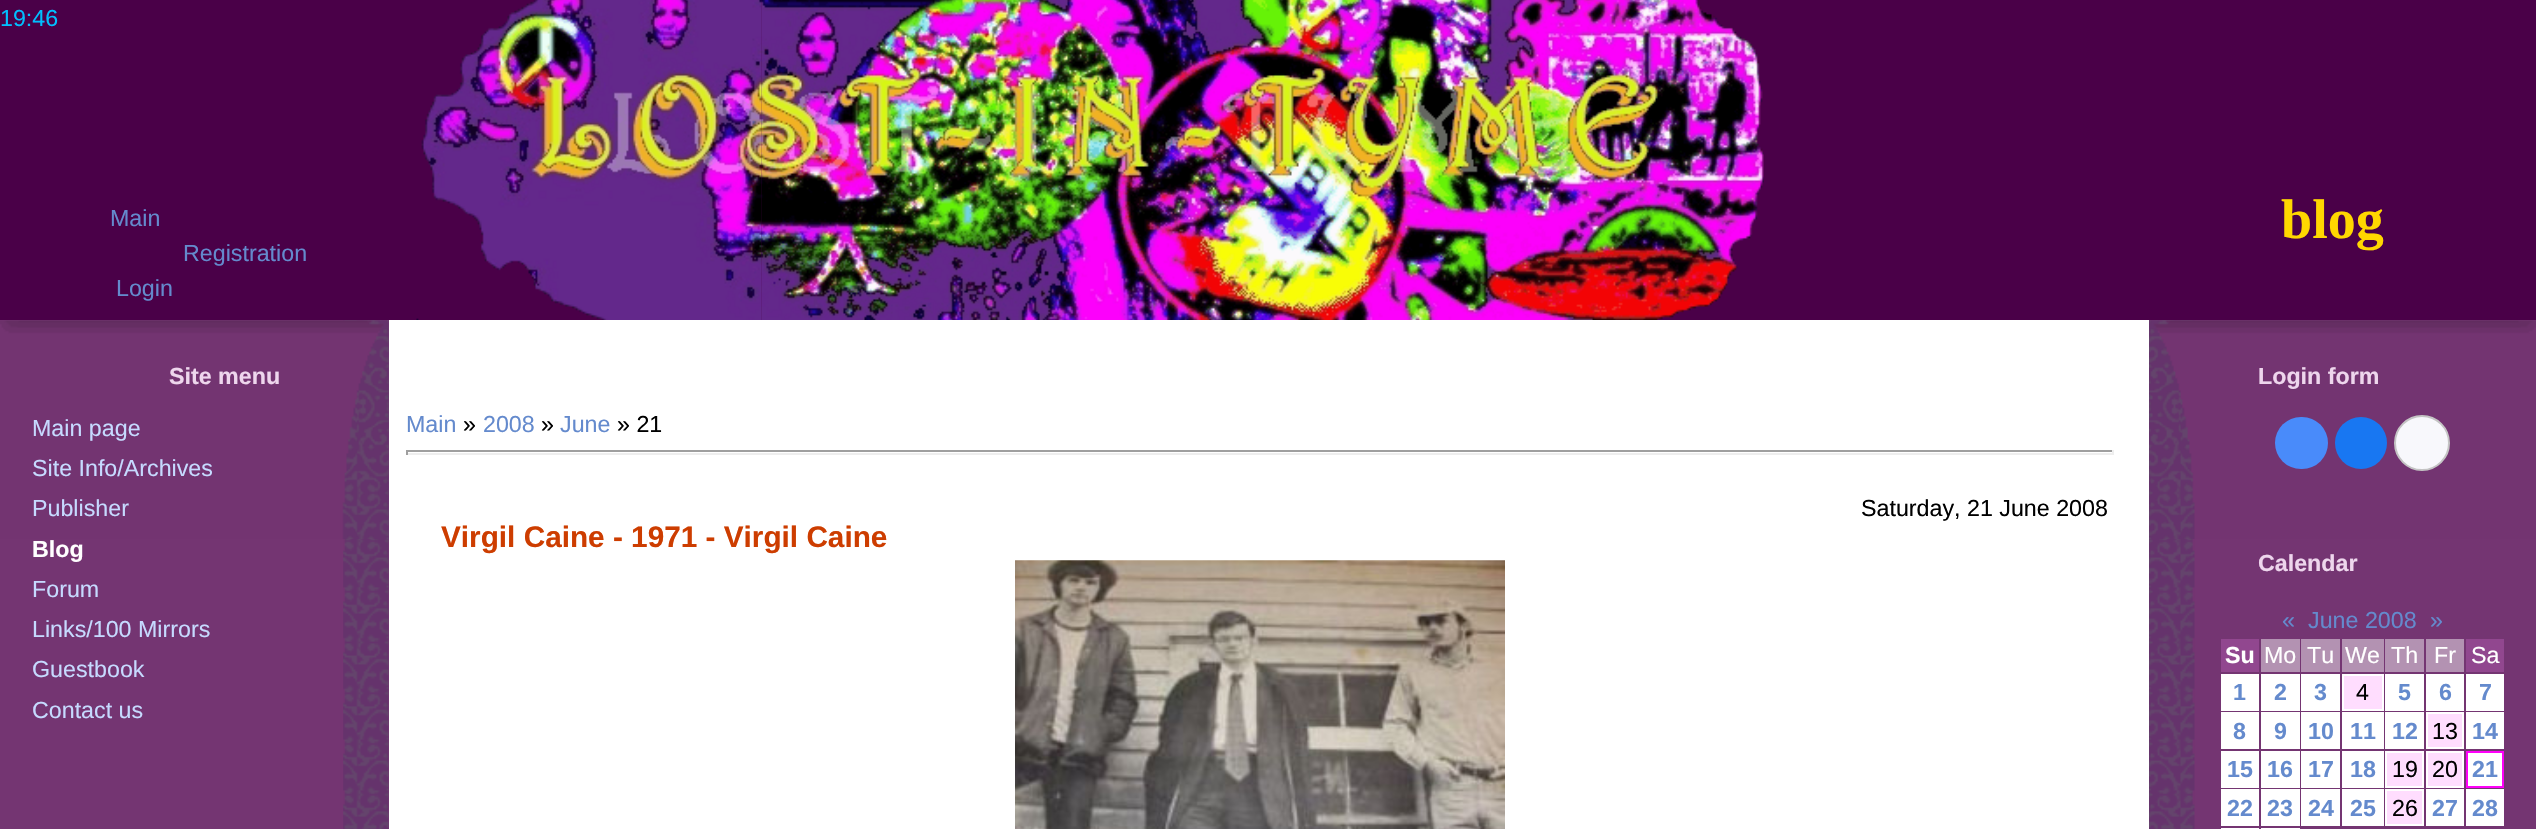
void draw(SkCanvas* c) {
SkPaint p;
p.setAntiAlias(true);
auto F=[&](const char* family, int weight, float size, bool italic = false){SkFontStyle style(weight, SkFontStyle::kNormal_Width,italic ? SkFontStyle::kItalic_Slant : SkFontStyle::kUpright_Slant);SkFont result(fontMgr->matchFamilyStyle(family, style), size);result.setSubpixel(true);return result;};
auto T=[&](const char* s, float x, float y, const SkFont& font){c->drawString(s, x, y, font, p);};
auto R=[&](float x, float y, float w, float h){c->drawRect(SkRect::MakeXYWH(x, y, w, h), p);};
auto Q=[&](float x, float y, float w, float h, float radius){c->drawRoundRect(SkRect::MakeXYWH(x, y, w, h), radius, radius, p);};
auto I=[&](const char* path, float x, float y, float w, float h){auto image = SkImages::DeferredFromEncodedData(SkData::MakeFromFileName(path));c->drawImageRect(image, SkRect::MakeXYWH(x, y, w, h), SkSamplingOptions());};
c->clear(0xffffffff);
p.setColor(0xff4a0048);
R(0,0,2536,320);
I("1.png",416,0,346,320);
auto f1 = F("Liberation Sans",400,23.25);
p.setColor(0xff00bfff);
T("19:46",0,26,f1);
I("2.png",761,0,1003,320);
auto f2 = F("Liberation Serif",700,56);
p.setColor(0xffffd700);
T("blog",2281,238,f2);
p.setColor(0xff648acd);
T("Main",110,226,f1);
T("Registration",183,261,f1);
T("Login",116,296,f1);
p.setColor(0xff743572);
R(0,320,389,509);
I("3.png",343,320,46,509);
I("4.png",0,320,389,219);
auto f3 = F("Liberation Sans",700,23.25);
p.setColor(0xffeed6ed);
T("Site menu",169,384,f3);
p.setColor(0xffc6daff);
T("Main page",32,436,f1);
T("Site Info/Archives",32,476,f1);
T("Publisher",32,516,f1);
p.setColor(0xffffffff);
T("Blog",32,557,f3);
p.setColor(0xffc6daff);
T("Forum",32,597,f1);
T("Links/100 Mirrors",32,637,f1);
T("Guestbook",32,677,f1);
T("Contact us",32,718,f1);
p.setColor(0xff648acd);
T("Main",406,432,f1);
p.setColor(0xff000000);
T("»",463,432,f1);
p.setColor(0xff648acd);
T("2008",483,432,f1);
p.setColor(0xff000000);
T("»",541,432,f1);
p.setColor(0xff648acd);
T("June",560,432,f1);
p.setColor(0xff000000);
T("» 21",617,432,f1);
p.setColor(0xff9f9f9f);
R(406,450,1708,2);
p.setColor(0xffeeeeee);
R(2112,450,2,5);
R(406,453,1708,2);
p.setColor(0xff9f9f9f);
R(406,450,2,5);
p.setColor(0xff000000);
T("Saturday, 21 June 2008",1861,516,f1);
auto f4 = F("Liberation Sans",700,29.75);
p.setColor(0xffcd3d00);
T("Virgil Caine - 1971 - Virgil Caine",441,547,f4);
I("5.png",1015,560,490,269);
p.setColor(0xff743572);
R(2149,320,387,509);
I("6.png",2149,320,46,509);
I("7.png",2149,320,387,219);
p.setColor(0xffeed6ed);
T("Login form",2258,384,f3);
p.setColor(0xff498bfa);
Q(2275,417,53,52,26);
p.setColor(0xff1877f2);
c->drawCircle(2361,443,26,p);
p.setColor(0xfff8f8fc);
c->drawCircle(2422,443,27,p);
p.setStroke(true);
p.setStrokeWidth(2);
p.setColor(0xffc4c4c4);
c->drawCircle(2422,443,27,p);
p.setStroke(false);
p.setColor(0xffeed6ed);
T("Calendar",2258,571,f3);
p.setColor(0xff648acd);
T("«",2282,628,f1);
T("June 2008",2308,628,f1);
T("»",2430,628,f1);
p.setColor(0xff91478f);
R(2221,639,38,33);
p.setColor(0xffffffff);
T("Su",2225,663,f3);
p.setColor(0xffb392b2);
R(2261,639,39,33);
p.setColor(0xffffffff);
T("Mo",2264,663,f1);
p.setColor(0xffb392b2);
R(2301,639,39,33);
p.setColor(0xffffffff);
T("Tu",2307,663,f1);
p.setColor(0xffb392b2);
R(2342,639,42,33);
p.setColor(0xffffffff);
T("We",2345,663,f1);
p.setColor(0xffb392b2);
R(2385,639,39,33);
p.setColor(0xffffffff);
T("Th",2391,663,f1);
p.setColor(0xffb392b2);
R(2426,639,38,33);
p.setColor(0xffffffff);
T("Fr",2434,663,f1);
p.setColor(0xff91478f);
R(2466,639,38,33);
p.setColor(0xffffffff);
T("Sa",2471,663,f1);
R(2221,674,38,37);
p.setColor(0xff648acd);
T("1",2233,700,f3);
p.setColor(0xffffffff);
R(2261,674,39,37);
p.setColor(0xff648acd);
T("2",2274,700,f3);
p.setColor(0xffffffff);
R(2301,674,39,37);
p.setColor(0xff648acd);
T("3",2314,700,f3);
p.setColor(0xffffddfe);
c->drawRect(SkRect::MakeXYWH(2343,675,40,35),p);
p.setStroke(true);
p.setColor(0xffffffff);
c->drawRect(SkRect::MakeXYWH(2343,675,40,35),p);
p.setStroke(false);
p.setColor(0xff000000);
T("4",2356,700,f1);
p.setColor(0xffffffff);
R(2385,674,39,37);
p.setColor(0xff648acd);
T("5",2398,700,f3);
p.setColor(0xffffffff);
R(2426,674,38,37);
p.setColor(0xff648acd);
T("6",2439,700,f3);
p.setColor(0xffffffff);
R(2466,674,38,37);
p.setColor(0xff648acd);
T("7",2479,700,f3);
p.setColor(0xffffffff);
R(2221,712,38,37);
p.setColor(0xff648acd);
T("8",2233,739,f3);
p.setColor(0xffffffff);
R(2261,712,39,37);
p.setColor(0xff648acd);
T("9",2274,739,f3);
p.setColor(0xffffffff);
R(2301,712,39,37);
p.setColor(0xff648acd);
T("10",2308,739,f3);
p.setColor(0xffffffff);
R(2342,712,42,37);
p.setColor(0xff648acd);
T("11",2350,739,f3);
p.setColor(0xffffffff);
R(2385,712,39,37);
p.setColor(0xff648acd);
T("12",2392,739,f3);
p.setColor(0xffffddfe);
c->drawRect(SkRect::MakeXYWH(2427,713,36,35),p);
p.setStroke(true);
p.setColor(0xffffffff);
c->drawRect(SkRect::MakeXYWH(2427,713,36,35),p);
p.setStroke(false);
p.setColor(0xff000000);
T("13",2432,739,f1);
p.setColor(0xffffffff);
R(2466,712,38,37);
p.setColor(0xff648acd);
T("14",2472,739,f3);
p.setColor(0xffffffff);
R(2221,751,38,37);
p.setColor(0xff648acd);
T("15",2227,777,f3);
p.setColor(0xffffffff);
R(2261,751,39,37);
p.setColor(0xff648acd);
T("16",2267,777,f3);
p.setColor(0xffffffff);
R(2301,751,39,37);
p.setColor(0xff648acd);
T("17",2308,777,f3);
p.setColor(0xffffffff);
R(2342,751,42,37);
p.setColor(0xff648acd);
T("18",2350,777,f3);
p.setColor(0xffffddfe);
c->drawRect(SkRect::MakeXYWH(2386,752,37,35),p);
p.setStroke(true);
p.setColor(0xffffffff);
c->drawRect(SkRect::MakeXYWH(2386,752,37,35),p);
p.setStroke(false);
p.setColor(0xff000000);
T("19",2392,777,f1);
p.setColor(0xffffddfe);
c->drawRect(SkRect::MakeXYWH(2427,752,36,35),p);
p.setStroke(true);
p.setColor(0xffffffff);
c->drawRect(SkRect::MakeXYWH(2427,752,36,35),p);
p.setStroke(false);
p.setColor(0xff000000);
T("20",2432,777,f1);
p.setColor(0xffffffff);
c->drawRect(SkRect::MakeXYWH(2467,752,36,35),p);
p.setStroke(true);
p.setColor(0xffff00f9);
c->drawRect(SkRect::MakeXYWH(2467,752,36,35),p);
p.setStroke(false);
p.setColor(0xff648acd);
T("21",2472,777,f3);
p.setColor(0xffffffff);
R(2221,789,38,37);
p.setColor(0xff648acd);
T("22",2227,816,f3);
p.setColor(0xffffffff);
R(2261,789,39,37);
p.setColor(0xff648acd);
T("23",2267,816,f3);
p.setColor(0xffffffff);
R(2301,789,39,37);
p.setColor(0xff648acd);
T("24",2308,816,f3);
p.setColor(0xffffffff);
R(2342,789,42,37);
p.setColor(0xff648acd);
T("25",2350,816,f3);
p.setColor(0xffffddfe);
c->drawRect(SkRect::MakeXYWH(2386,790,37,35),p);
p.setStroke(true);
p.setColor(0xffffffff);
c->drawRect(SkRect::MakeXYWH(2386,790,37,35),p);
p.setStroke(false);
p.setColor(0xff000000);
T("26",2392,816,f1);
p.setColor(0xffffffff);
R(2426,789,38,37);
p.setColor(0xff648acd);
T("27",2432,816,f3);
p.setColor(0xffffffff);
R(2466,789,38,37);
p.setColor(0xff648acd);
T("28",2472,816,f3);
p.setStroke(true);
p.setColor(0xffffffff);
c->drawRect(SkRect::MakeXYWH(2222,829,36,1),p);
p.setStroke(false);
R(2261,828,39,1);
}
